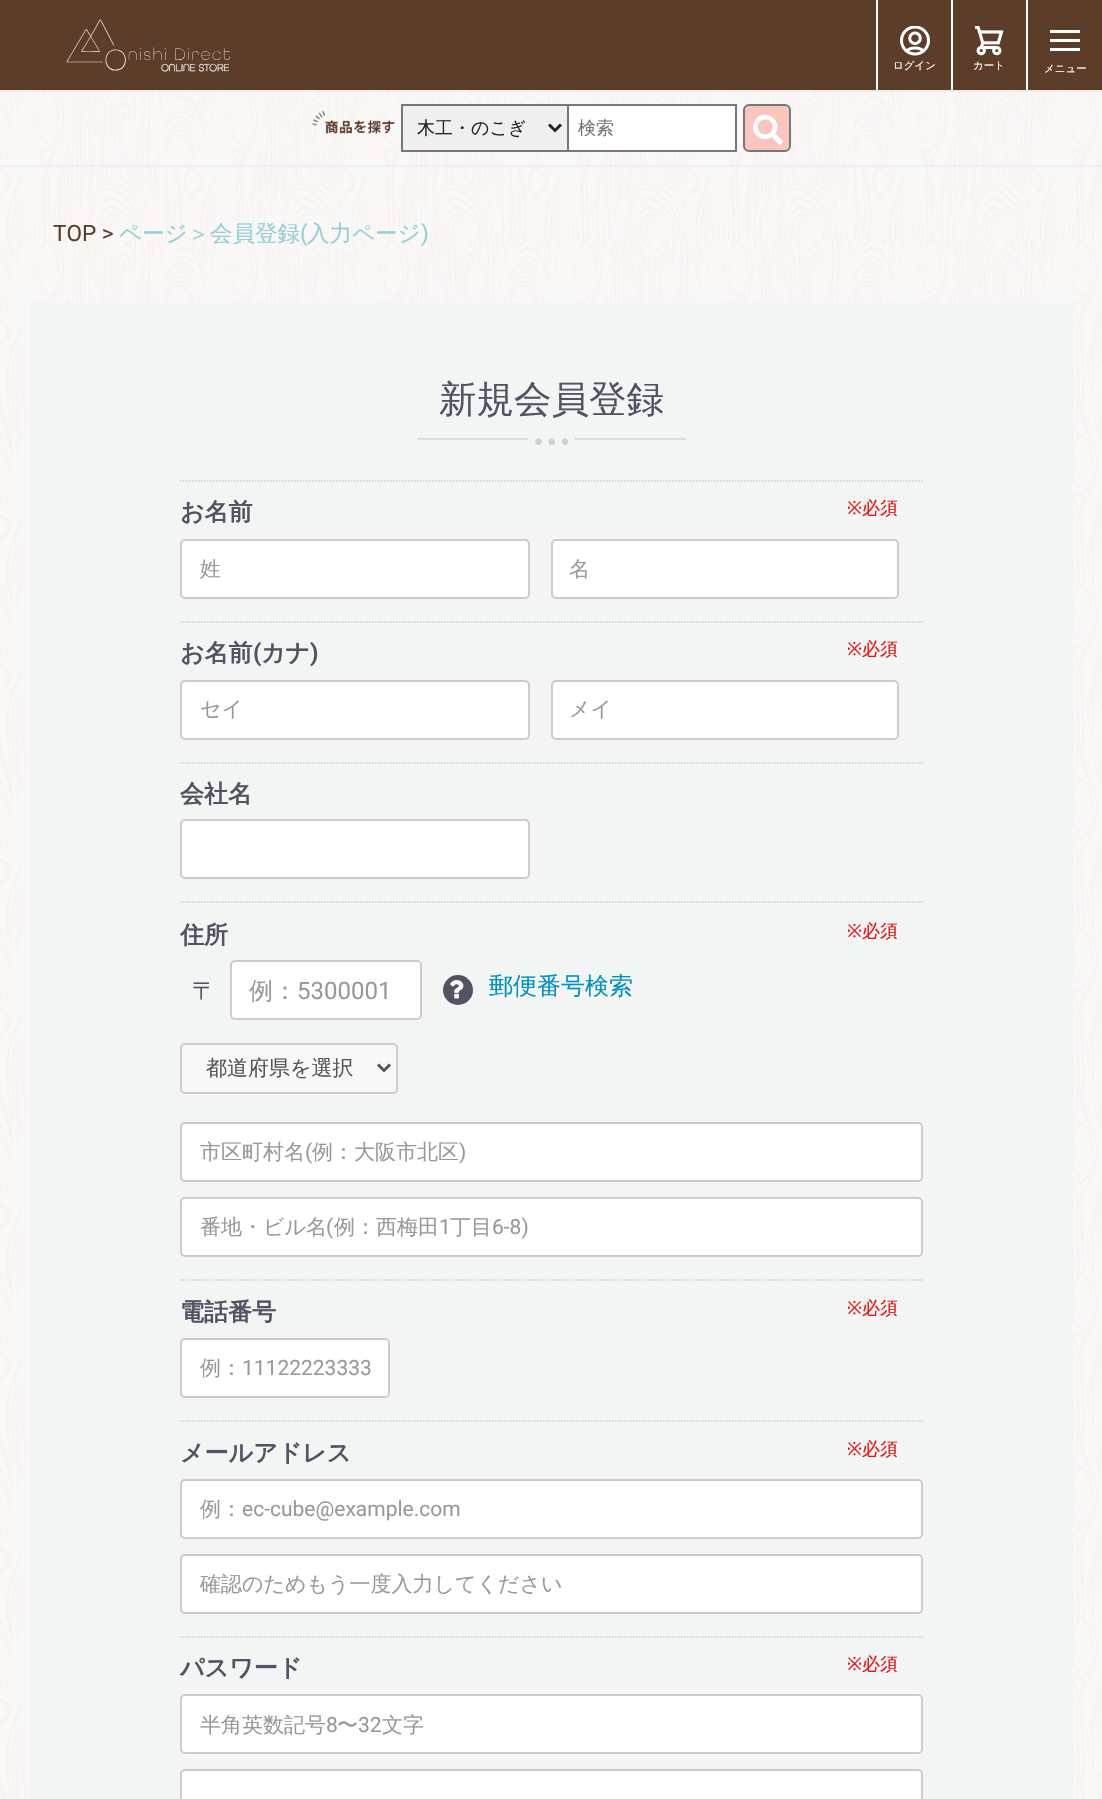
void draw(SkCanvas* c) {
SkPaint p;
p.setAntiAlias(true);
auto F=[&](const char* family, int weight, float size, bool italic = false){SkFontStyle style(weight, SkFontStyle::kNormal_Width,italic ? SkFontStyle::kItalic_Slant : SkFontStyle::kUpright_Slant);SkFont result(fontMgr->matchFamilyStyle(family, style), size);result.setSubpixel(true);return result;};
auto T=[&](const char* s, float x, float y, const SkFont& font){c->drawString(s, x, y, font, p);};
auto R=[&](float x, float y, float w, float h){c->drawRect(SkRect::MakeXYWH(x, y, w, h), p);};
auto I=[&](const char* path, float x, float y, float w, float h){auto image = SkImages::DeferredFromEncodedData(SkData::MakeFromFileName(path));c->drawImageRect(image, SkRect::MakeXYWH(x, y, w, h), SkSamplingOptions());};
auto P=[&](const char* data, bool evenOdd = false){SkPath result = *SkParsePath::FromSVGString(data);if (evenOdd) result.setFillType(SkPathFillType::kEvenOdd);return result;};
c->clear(0xffffffff);
I("1.png",0,92,1102,1707);
p.setColor(0xff5c3d2a);
R(0,0,1102,90);
I("2.png",66,19,164,53);
p.setColor(0xffffffff);
R(876,0,2,90);
R(951,0,2,90);
I("3.png",900,26,30,30);
auto f1 = F("WenQuanYi Zen Hei",500,10.5);
T("ログイン",893,69,f1);
R(1026,0,2,90);
I("4.png",975,26,29,30);
T("カート",973,69,f1);
R(1050,30,30,3);
R(1050,39,30,3);
R(1050,48,30,3);
T("メニュー",1044,72,f1);
p.setColor(0xffeeeeee);
R(0,90,1102,2);
R(0,165,1102,2);
I("5.png",312,111,83,23);
p.setColor(0xffefefef);
c->drawRect(SkRect::MakeXYWH(402,105,166,46),p);
p.setStroke(true);
p.setStrokeWidth(2);
p.setColor(0xff777777);
c->drawRect(SkRect::MakeXYWH(402,105,166,46),p);
p.setStrokeWidth(3);
p.setColor(0xff212529);
c->drawPath(P("M549 124.5l6 6l6-6"),p);
auto f2 = F("WenQuanYi Zen Hei",500,18);
p.setStroke(false);
T("⽊⼯・のこぎ",417,134,f2);
p.setColor(0xffffffff);
R(569,106,166,44);
p.setColor(0xff777777);
R(569,104,168,2);
R(735,104,2,48);
R(569,150,168,2);
p.setColor(0xff757575);
T("検索",578,134,f2);
p.setColor(0xfff8c6be);
c->drawRoundRect(SkRect::MakeXYWH(744,105,46,46),5,5,p);
p.setStroke(true);
p.setStrokeWidth(2);
p.setColor(0xff777777);
c->drawRoundRect(SkRect::MakeXYWH(744,105,46,46),5,5,p);
I("6.png",753,114,30,31);
auto f3 = F("Roboto",400,22.5);
p.setStroke(false);
p.setColor(0xff5c3d2a);
T("TOP >",53,241,f3);
auto f4 = F("WenQuanYi Zen Hei",500,22.5);
p.setColor(0xff93cfd4);
T("ページ＞会員登録",119,241,f4);
T("(",300,241,f3);
T("⼊⼒ページ",307,241,f4);
T(")",421,241,f3);
p.setColor(0xfff3f4f4);
R(30,303,1043,1496);
auto f5 = F("WenQuanYi Zen Hei",500,37.5);
p.setColor(0xff525263);
T("新規会員登録",439,412,f5);
p.setColor(0xffdbdcdc);
R(417,438,111,2);
auto f6 = F("Liberation Sans",400,15);
p.setColor(0xffcecfd2);
T("● ● ●",534,446,f6);
p.setColor(0xffdbdcdc);
R(575,438,111,2);
p.setStroke(true);
p.setStrokeWidth(1.5);
p.setColor(0xffcccccc);
p.setPathEffect(SkDashPathEffect::Make({{1.5f,1.5f}}, 0));
c->drawPath(P("M180 481h742.5"),p);
p.setPathEffect(nullptr);
p.setPathEffect(SkDashPathEffect::Make({{1.5f,1.5f}}, 0));
c->drawPath(P("M180 622h742.5"),p);
p.setPathEffect(nullptr);
auto f7 = F("WenQuanYi Zen Hei",700,24);
p.setStroke(false);
p.setColor(0xff525263);
T("お名前",180,520,f7);
auto f8 = F("Noto Sans",400,18);
p.setColor(0xffee0e0e);
T("※",847,514,f8);
T("必須",862,514,f2);
p.setColor(0xffffffff);
c->drawRoundRect(SkRect::MakeXYWH(181,540,348,58),4,4,p);
p.setStroke(true);
p.setStrokeWidth(2);
p.setColor(0xffcccccc);
c->drawRoundRect(SkRect::MakeXYWH(181,540,348,58),4,4,p);
auto f9 = F("WenQuanYi Zen Hei",500,21);
p.setStroke(false);
p.setColor(0xff999999);
T("姓",200,576,f9);
p.setColor(0xffffffff);
c->drawRoundRect(SkRect::MakeXYWH(552,540,346,58),4,4,p);
p.setStroke(true);
p.setColor(0xffcccccc);
c->drawRoundRect(SkRect::MakeXYWH(552,540,346,58),4,4,p);
p.setStroke(false);
p.setColor(0xff999999);
T("名",569,576,f9);
p.setStroke(true);
p.setStrokeWidth(1.5);
p.setColor(0xffcccccc);
p.setPathEffect(SkDashPathEffect::Make({{1.5f,1.5f}}, 0));
c->drawPath(P("M180 763h742.5"),p);
p.setPathEffect(nullptr);
p.setStroke(false);
p.setColor(0xff525263);
T("お名前",180,661,f7);
auto f10 = F("Roboto",700,24);
T("(",253,661,f10);
T("カナ",261,661,f7);
T(")",310,661,f10);
p.setColor(0xffee0e0e);
T("※",847,655,f8);
T("必須",862,655,f2);
p.setColor(0xffffffff);
c->drawRoundRect(SkRect::MakeXYWH(181,681,348,58),4,4,p);
p.setStroke(true);
p.setStrokeWidth(2);
p.setColor(0xffcccccc);
c->drawRoundRect(SkRect::MakeXYWH(181,681,348,58),4,4,p);
p.setStroke(false);
p.setColor(0xff999999);
T("セイ",200,716,f9);
p.setColor(0xffffffff);
c->drawRoundRect(SkRect::MakeXYWH(552,681,346,58),4,4,p);
p.setStroke(true);
p.setColor(0xffcccccc);
c->drawRoundRect(SkRect::MakeXYWH(552,681,346,58),4,4,p);
p.setStroke(false);
p.setColor(0xff999999);
T("メイ",569,716,f9);
p.setStroke(true);
p.setStrokeWidth(1.5);
p.setColor(0xffcccccc);
p.setPathEffect(SkDashPathEffect::Make({{1.5f,1.5f}}, 0));
c->drawPath(P("M180 902h742.5"),p);
p.setPathEffect(nullptr);
p.setStroke(false);
p.setColor(0xff525263);
T("会社名",180,802,f7);
p.setColor(0xffffffff);
c->drawRoundRect(SkRect::MakeXYWH(181,820,348,58),4,4,p);
p.setStroke(true);
p.setStrokeWidth(2);
p.setColor(0xffcccccc);
c->drawRoundRect(SkRect::MakeXYWH(181,820,348,58),4,4,p);
p.setStrokeWidth(1.5);
p.setPathEffect(SkDashPathEffect::Make({{1.5f,1.5f}}, 0));
c->drawPath(P("M180 1280h742.5"),p);
p.setPathEffect(nullptr);
p.setStroke(false);
p.setColor(0xff525263);
T("住所",180,943,f7);
p.setColor(0xffee0e0e);
T("※",847,937,f8);
T("必須",862,937,f2);
auto f11 = F("WenQuanYi Zen Hei",500,24);
p.setColor(0xff525263);
T("〒",192,999,f11);
p.setColor(0xffffffff);
c->drawRoundRect(SkRect::MakeXYWH(231,961,190,58),4,4,p);
p.setStroke(true);
p.setStrokeWidth(2);
p.setColor(0xffcccccc);
c->drawRoundRect(SkRect::MakeXYWH(231,961,190,58),4,4,p);
p.setStroke(false);
p.setColor(0xff999999);
T("例：",249,999,f11);
auto f12 = F("Roboto",400,24);
T("5300001",297,999,f12);
p.setColor(0xff525263);
c->drawCircle(458,990,15,p);
I("7.png",450,980,14,19);
p.setColor(0xff0092c4);
T("郵便番号検索",489,994,f11);
p.setColor(0xfff8f8f8);
c->drawRoundRect(SkRect::MakeXYWH(181,1044,216,49),4,4,p);
p.setStroke(true);
p.setColor(0xffcccccc);
c->drawRoundRect(SkRect::MakeXYWH(181,1044,216,49),4,4,p);
p.setStrokeWidth(3);
p.setColor(0xff555555);
c->drawPath(P("M378 1064.5l6 6l6-6"),p);
p.setStroke(false);
T("都道府県を選択",206,1075,f9);
p.setColor(0xffffffff);
c->drawRoundRect(SkRect::MakeXYWH(181,1123,741,58),4,4,p);
p.setStroke(true);
p.setStrokeWidth(2);
p.setColor(0xffcccccc);
c->drawRoundRect(SkRect::MakeXYWH(181,1123,741,58),4,4,p);
p.setStroke(false);
p.setColor(0xff999999);
T("市区町村名",200,1159,f9);
auto f13 = F("Roboto",400,21);
T("(",305,1159,f13);
T("例：大阪市北区",312,1159,f9);
T(")",459,1159,f13);
p.setColor(0xffffffff);
c->drawRoundRect(SkRect::MakeXYWH(181,1198,741,58),4,4,p);
p.setStroke(true);
p.setColor(0xffcccccc);
c->drawRoundRect(SkRect::MakeXYWH(181,1198,741,58),4,4,p);
p.setStroke(false);
p.setColor(0xff999999);
T("番地・ビル名",200,1234,f9);
T("(",326,1234,f13);
T("例：西梅田",334,1234,f9);
T("1",439,1234,f13);
T("丁目",450,1234,f9);
T("6-8)",492,1234,f13);
p.setStroke(true);
p.setStrokeWidth(1.5);
p.setColor(0xffcccccc);
p.setPathEffect(SkDashPathEffect::Make({{1.5f,1.5f}}, 0));
c->drawPath(P("M180 1421h742.5"),p);
p.setPathEffect(nullptr);
p.setStroke(false);
p.setColor(0xff525263);
T("電話番号",180,1320,f7);
p.setColor(0xffee0e0e);
T("※",847,1314,f8);
T("必須",862,1314,f2);
p.setColor(0xffffffff);
c->drawRoundRect(SkRect::MakeXYWH(181,1339,208,58),4,4,p);
p.setStroke(true);
p.setStrokeWidth(2);
p.setColor(0xffcccccc);
c->drawRoundRect(SkRect::MakeXYWH(181,1339,208,58),4,4,p);
p.setStroke(false);
p.setColor(0xff999999);
T("例：",200,1375,f9);
T("11122223333",242,1375,f13);
p.setStroke(true);
p.setStrokeWidth(1.5);
p.setColor(0xffcccccc);
p.setPathEffect(SkDashPathEffect::Make({{1.5f,1.5f}}, 0));
c->drawPath(P("M180 1637h742.5"),p);
p.setPathEffect(nullptr);
p.setStroke(false);
p.setColor(0xff525263);
T("メールアドレス",180,1461,f7);
p.setColor(0xffee0e0e);
T("※",847,1455,f8);
T("必須",862,1455,f2);
p.setColor(0xffffffff);
c->drawRoundRect(SkRect::MakeXYWH(181,1480,741,58),4,4,p);
p.setStroke(true);
p.setStrokeWidth(2);
p.setColor(0xffcccccc);
c->drawRoundRect(SkRect::MakeXYWH(181,1480,741,58),4,4,p);
p.setStroke(false);
p.setColor(0xff999999);
T("例：",200,1516,f9);
T("ec-cube@example.com",242,1516,f13);
p.setColor(0xffffffff);
c->drawRoundRect(SkRect::MakeXYWH(181,1555,741,58),4,4,p);
p.setStroke(true);
p.setColor(0xffcccccc);
c->drawRoundRect(SkRect::MakeXYWH(181,1555,741,58),4,4,p);
p.setStroke(false);
p.setColor(0xff999999);
T("確認のためもう一度入力してください",200,1591,f9);
p.setColor(0xff525263);
T("パスワード",180,1676,f7);
p.setColor(0xffee0e0e);
T("※",847,1670,f8);
T("必須",862,1670,f2);
p.setColor(0xffffffff);
c->drawRoundRect(SkRect::MakeXYWH(181,1695,741,58),4,4,p);
p.setStroke(true);
p.setColor(0xffcccccc);
c->drawRoundRect(SkRect::MakeXYWH(181,1695,741,58),4,4,p);
p.setStroke(false);
p.setColor(0xff999999);
T("半角英数記号",200,1732,f9);
T("8",326,1732,f13);
T("〜",337,1732,f9);
T("32",358,1732,f13);
T("文字",382,1732,f9);
p.setColor(0xffffffff);
c->drawRoundRect(SkRect::MakeXYWH(181,1770,741,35),4,4,p);
p.setStroke(true);
p.setColor(0xffcccccc);
c->drawRoundRect(SkRect::MakeXYWH(181,1770,741,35),4,4,p);
}
